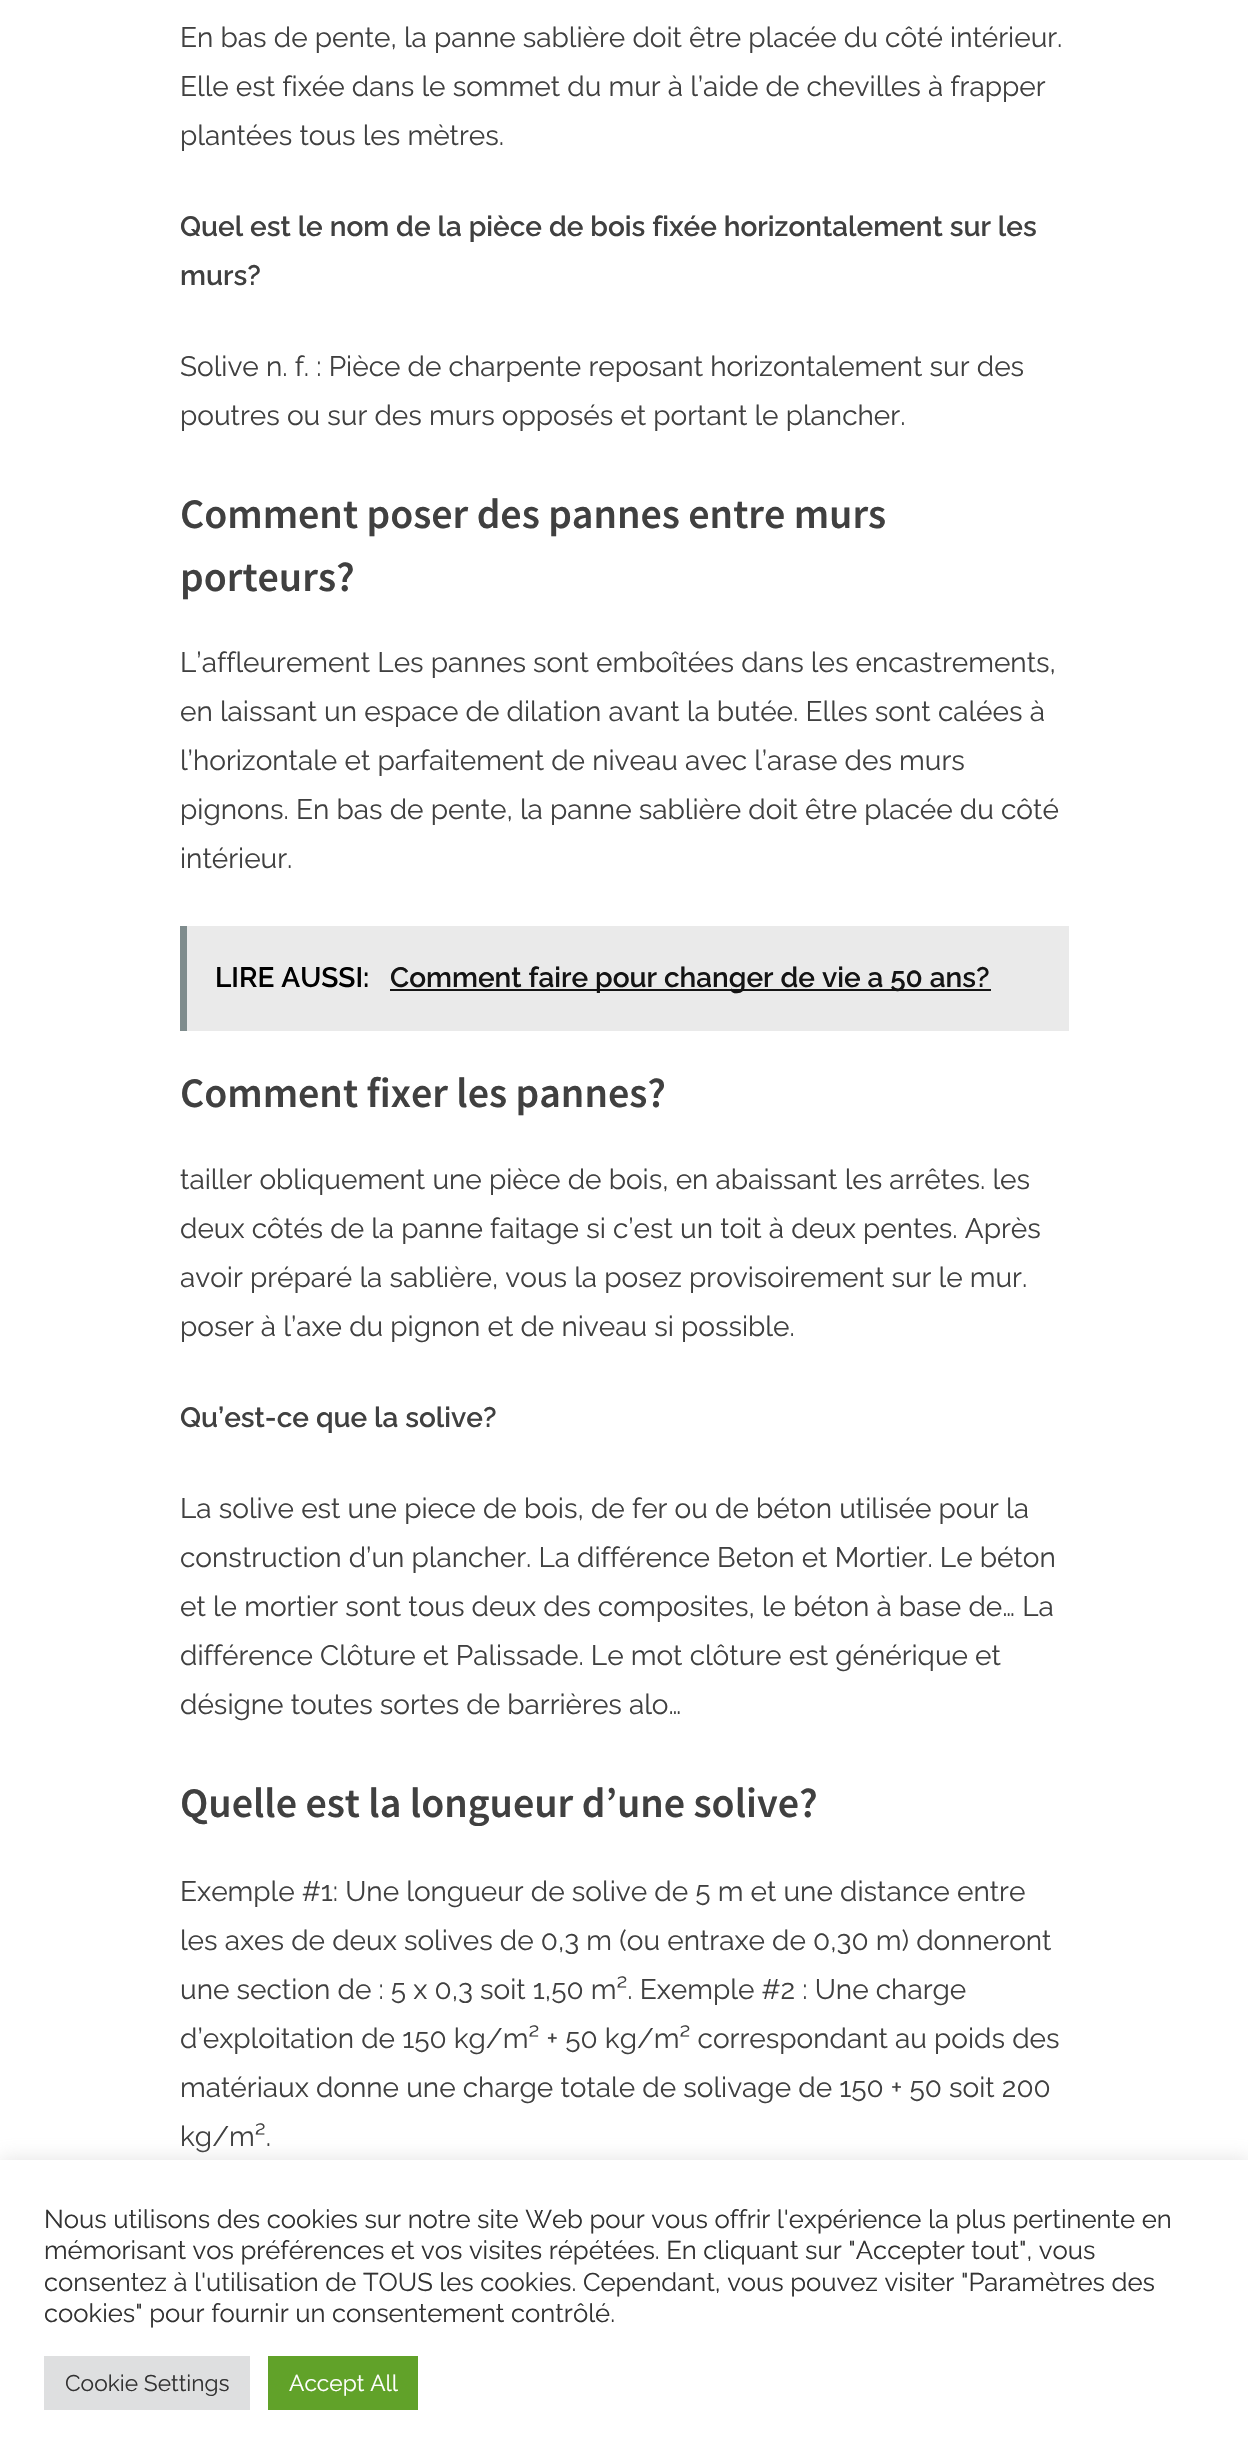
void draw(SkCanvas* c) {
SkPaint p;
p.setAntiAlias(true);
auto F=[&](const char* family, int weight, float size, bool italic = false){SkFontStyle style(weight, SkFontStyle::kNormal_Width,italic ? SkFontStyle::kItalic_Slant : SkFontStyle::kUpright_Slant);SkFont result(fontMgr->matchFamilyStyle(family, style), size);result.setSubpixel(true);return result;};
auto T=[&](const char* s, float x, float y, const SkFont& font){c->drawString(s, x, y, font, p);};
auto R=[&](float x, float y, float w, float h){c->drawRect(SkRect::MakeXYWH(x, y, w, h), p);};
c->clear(0xffffffff);
auto f1 = F("Raleway",400,28);
p.setColor(0xff404040);
T("En bas de pente, la panne sablière doit être placée du côté intérieur.",180,47,f1);
T("Elle est fixée dans le sommet du mur à l’aide de chevilles à frapper",180,96,f1);
T("plantées tous les mètres.",180,145,f1);
auto f2 = F("Raleway",600,28);
T("Quel est le nom de la pièce de bois fixée horizontalement sur les",180,236,f2);
T("murs?",180,285,f2);
T("Solive n. f. : Pièce de charpente reposant horizontalement sur des",180,376,f1);
T("poutres ou sur des murs opposés et portant le plancher.",180,425,f1);
auto f3 = F("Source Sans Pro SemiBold",600,42);
T("Comment poser des pannes entre murs",180,528,f3);
T("porteurs?",180,591,f3);
T("L’affleurement Les pannes sont emboîtées dans les encastrements,",180,672,f1);
T("en laissant un espace de dilation avant la butée. Elles sont calées à",180,721,f1);
T("l’horizontale et parfaitement de niveau avec l’arase des murs",180,770,f1);
T("pignons. En bas de pente, la panne sablière doit être placée du côté",180,819,f1);
T("intérieur.",180,868,f1);
p.setColor(0xffeaeaea);
R(187,926,882,105);
p.setColor(0xff7f8c8d);
R(180,926,7,105);
p.setColor(0xff000000);
T("LIRE AUSSI:",215,987,f2);
p.setColor(0xff141414);
R(390,989,601,2);
T("Comment faire pour changer de vie a 50 ans?",390,987,f2);
p.setColor(0xff404040);
T("Comment fixer les pannes?",180,1107,f3);
T("tailler obliquement une pièce de bois, en abaissant les arrêtes. les",180,1189,f1);
T("deux côtés de la panne faitage si c’est un toit à deux pentes. Après",180,1238,f1);
T("avoir préparé la sablière, vous la posez provisoirement sur le mur.",180,1287,f1);
T("poser à l’axe du pignon et de niveau si possible.",180,1336,f1);
T("Qu’est-ce que la solive?",180,1427,f2);
T("La solive est une piece de bois, de fer ou de béton utilisée pour la",180,1518,f1);
T("construction d’un plancher. La différence Beton et Mortier. Le béton",180,1567,f1);
T("et le mortier sont tous deux des composites, le béton à base de… La",180,1616,f1);
T("différence Clôture et Palissade. Le mot clôture est générique et",180,1665,f1);
T("désigne toutes sortes de barrières alo…",180,1714,f1);
T("Quelle est la longueur d’une solive?",180,1817,f3);
T("Exemple #1: Une longueur de solive de 5 m et une distance entre",180,1901,f1);
T("les axes de deux solives de 0,3 m (ou entraxe de 0,30 m) donneront",180,1950,f1);
T("une section de : 5 x 0,3 soit 1,50 m². Exemple #2 : Une charge",180,1999,f1);
T("d’exploitation de 150 kg/m² + 50 kg/m² correspondant au poids des",180,2048,f1);
T("matériaux donne une charge totale de solivage de 150 + 50 soit 200",180,2097,f1);
T("kg/m².",180,2146,f1);
p.setColor(0x4dacabab);
p.setMaskFilter(SkMaskFilter::MakeBlur(kNormal_SkBlurStyle, 9));
c->drawRect(SkRect::MakeXYWH(0,2158,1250,303),p);
p.setMaskFilter(nullptr);
p.setColor(0xffffffff);
R(0,2160,1248,302);
auto f4 = F("Raleway",400,25.65);
p.setColor(0xff333333);
T("Nous utilisons des cookies sur notre site Web pour vous offrir l'expérience la plus pertinente en",44,2228,f4);
T("mémorisant vos préférences et vos visites répétées. En cliquant sur \"Accepter tout\", vous",44,2259,f4);
T("consentez à l'utilisation de TOUS les cookies. Cependant, vous pouvez visiter \"Paramètres des",44,2291,f4);
T("cookies\" pour fournir un consentement contrôlé.",44,2322,f4);
p.setColor(0xffdedfe0);
R(44,2356,206,54);
auto f5 = F("Raleway",400,22.75);
p.setColor(0xff333333);
T("Cookie Settings",65,2391,f5);
p.setColor(0xff61a229);
R(268,2356,150,54);
p.setColor(0xffffffff);
T("Accept All",289,2391,f5);
}
